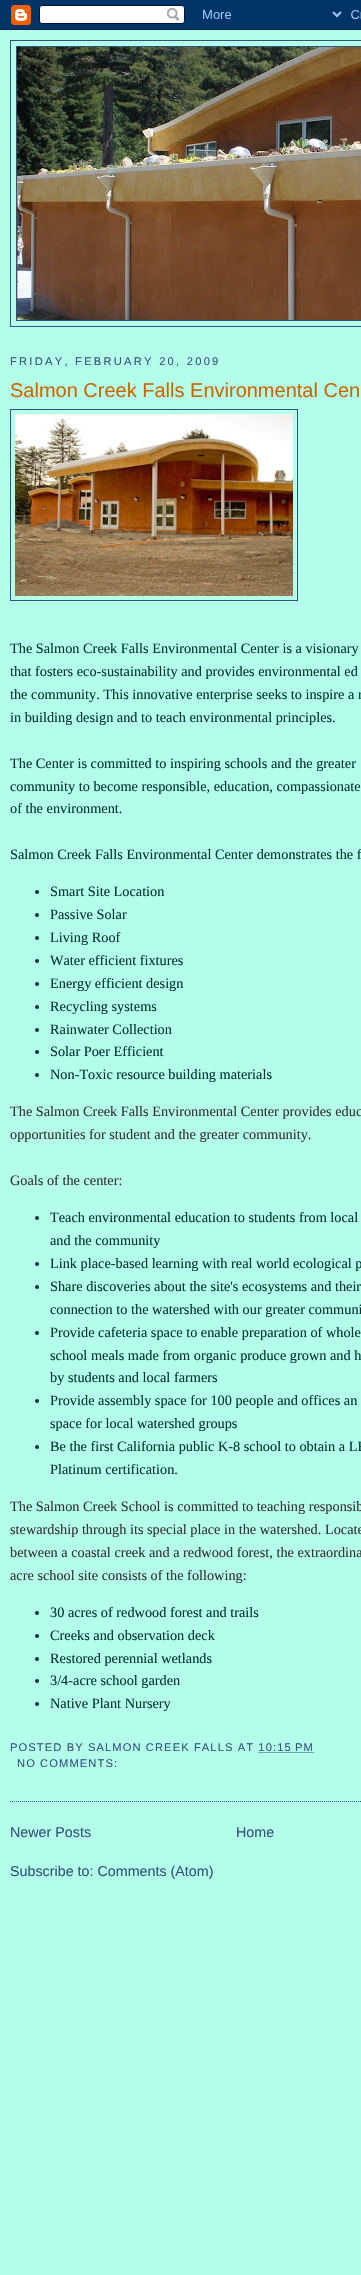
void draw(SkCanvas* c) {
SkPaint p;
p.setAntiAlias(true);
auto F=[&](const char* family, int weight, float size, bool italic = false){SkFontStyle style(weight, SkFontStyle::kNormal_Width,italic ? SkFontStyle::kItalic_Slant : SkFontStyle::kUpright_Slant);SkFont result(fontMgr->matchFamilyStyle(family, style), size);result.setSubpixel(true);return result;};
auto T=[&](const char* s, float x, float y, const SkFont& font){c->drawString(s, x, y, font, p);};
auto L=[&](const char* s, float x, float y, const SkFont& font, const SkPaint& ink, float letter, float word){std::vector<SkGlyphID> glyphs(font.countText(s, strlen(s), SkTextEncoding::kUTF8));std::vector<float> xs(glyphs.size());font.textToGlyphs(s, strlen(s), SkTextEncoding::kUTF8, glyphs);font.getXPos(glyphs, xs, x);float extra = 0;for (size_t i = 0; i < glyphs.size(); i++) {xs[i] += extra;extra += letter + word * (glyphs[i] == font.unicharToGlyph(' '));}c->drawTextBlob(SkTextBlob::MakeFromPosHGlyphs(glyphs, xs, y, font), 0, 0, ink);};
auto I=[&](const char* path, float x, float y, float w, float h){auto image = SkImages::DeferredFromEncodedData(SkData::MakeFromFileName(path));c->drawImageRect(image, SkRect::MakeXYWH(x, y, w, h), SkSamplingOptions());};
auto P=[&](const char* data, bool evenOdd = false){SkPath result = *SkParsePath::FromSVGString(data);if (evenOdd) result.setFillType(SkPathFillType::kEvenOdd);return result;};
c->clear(0xffb4ffe9);
I("1.png",0,0,361,30);
p.setStroke(true);
p.setStrokeWidth(1);
p.setColor(0xff32527a);
c->drawRect(SkRect::MakeXYWH(10.5,40.5,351,286),p);
c->drawRect(SkRect::MakeXYWH(16.5,46.5,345,274),p);
I("2.png",17,47,344,273);
auto f1 = F("Liberation Sans",400,11.15);
p.setStroke(false);
L("FRIDAY, FEBRUARY 20, 2009",10,365,f1,p,2.25,0);
p.setStroke(true);
p.setPathEffect(SkDashPathEffect::Make({{1,1}}, 0));
c->drawPath(P("M10 1801.5h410"),p);
p.setPathEffect(nullptr);
auto f2 = F("Liberation Sans",400,20);
p.setStroke(false);
p.setColor(0xffcc6600);
T("Salmon Creek Falls Environmental Cen",10,397,f2);
p.setStroke(true);
p.setColor(0xff32527a);
c->drawRect(SkRect::MakeXYWH(10.5,409.5,287,191),p);
I("3.png",15,414,278,182);
auto f3 = F("Liberation Serif",400,14.3);
p.setStroke(false);
p.setColor(0xff003333);
T("The Salmon Creek Falls Environmental Center is a visionary",10,653,f3);
T("that fosters eco-sustainability and provides environmental ed",10,676,f3);
T("the community. This innovative enterprise seeks to inspire a r",10,699,f3);
T("in building design and to teach environmental principles.",10,722,f3);
T("The Center is committed to inspiring schools and the greater",10,768,f3);
T("community to become responsible, education, compassionate",10,791,f3);
T("of the environment.",10,813,f3);
T("Salmon Creek Falls Environmental Center demonstrates the f",10,859,f3);
c->drawCircle(37,892,2,p);
T("Smart Site Location",50,896,f3);
c->drawCircle(37,915,2,p);
T("Passive Solar",50,919,f3);
c->drawCircle(37,938,2,p);
T("Living Roof",50,942,f3);
c->drawCircle(37,961,2,p);
T("Water efficient fixtures",50,965,f3);
c->drawCircle(37,984,2,p);
T("Energy efficient design",50,988,f3);
c->drawCircle(37,1007,2,p);
T("Recycling systems",50,1011,f3);
c->drawCircle(37,1030,2,p);
T("Rainwater Collection",50,1034,f3);
c->drawCircle(37,1052,2,p);
T("Solar Poer Efficient",50,1056,f3);
c->drawCircle(37,1075,2,p);
T("Non-Toxic resource building materials",50,1079,f3);
p.setColor(0xff333333);
T("The Salmon Creek Falls Environmental Center provides educ",10,1116,f3);
T("opportunities for student and the greater community.",10,1139,f3);
T("Goals of the center:",10,1185,f3);
p.setColor(0xff003333);
c->drawCircle(37,1218,2,p);
T("Teach environmental education to students from local",50,1222,f3);
T("and the community",50,1245,f3);
c->drawCircle(37,1264,2,p);
T("Link place-based learning with real world ecological p",50,1268,f3);
c->drawCircle(37,1287,2,p);
T("Share discoveries about the site's ecosystems and their",50,1291,f3);
T("connection to the watershed with our greater communi",50,1314,f3);
c->drawCircle(37,1333,2,p);
T("Provide cafeteria space to enable preparation of whole",50,1337,f3);
T("school meals made from organic produce grown and h",50,1360,f3);
T("by students and local farmers",50,1382,f3);
c->drawCircle(37,1401,2,p);
T("Provide assembly space for 100 people and offices an",50,1405,f3);
T("space for local watershed groups",50,1428,f3);
c->drawCircle(37,1447,2,p);
T("Be the first California public K-8 school to obtain a LE",50,1451,f3);
T("Platinum certification.",50,1474,f3);
p.setColor(0xff333333);
T("The Salmon Creek School is committed to teaching responsib",10,1511,f3);
T("stewardship through its special place in the watershed. Locate",10,1534,f3);
T("between a coastal creek and a redwood forest, the extraordina",10,1557,f3);
T("acre school site consists of the following:",10,1580,f3);
p.setColor(0xff003333);
c->drawCircle(37,1613,2,p);
T("30 acres of redwood forest and trails",50,1617,f3);
c->drawCircle(37,1636,2,p);
T("Creeks and observation deck",50,1640,f3);
c->drawCircle(37,1659,2,p);
T("Restored perennial wetlands",50,1663,f3);
c->drawCircle(37,1681,2,p);
T("3/4-acre school garden",50,1685,f3);
c->drawCircle(37,1704,2,p);
T("Native Plant Nursery",50,1708,f3);
p.setColor(0xff32527a);
L("POSTED BY SALMON CREEK FALLS AT 10:15 PM",10,1751,f1,p,1.1,0);
p.setStroke(true);
p.setPathEffect(SkDashPathEffect::Make({{1,1}}, 0));
c->drawPath(P("M258.5 1752.5h56"),p);
p.setPathEffect(nullptr);
p.setStroke(false);
L("NO COMMENTS:",17,1767,f1,p,1.1,0);
auto f4 = F("Liberation Sans",400,14.3);
T("Newer Posts",10,1837,f4);
T("Home",236,1837,f4);
T("Subscribe to: Comments (Atom)",10,1876,f4);
}
